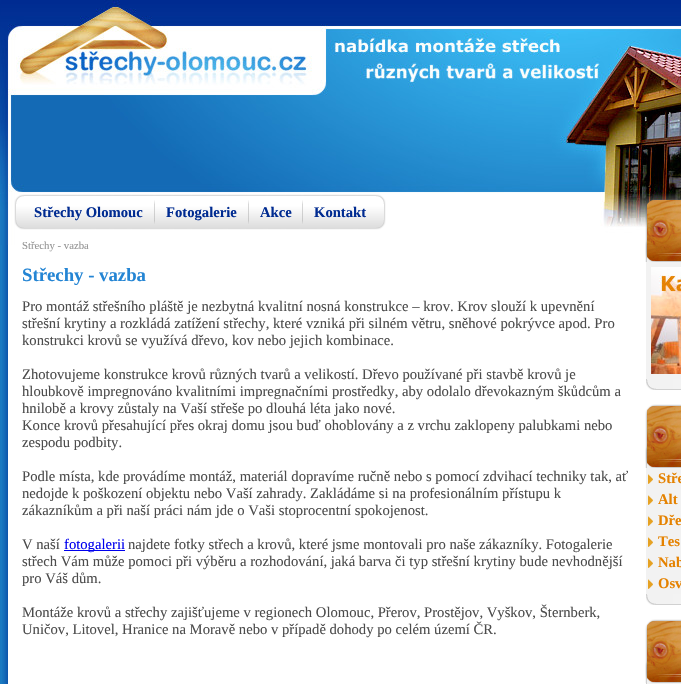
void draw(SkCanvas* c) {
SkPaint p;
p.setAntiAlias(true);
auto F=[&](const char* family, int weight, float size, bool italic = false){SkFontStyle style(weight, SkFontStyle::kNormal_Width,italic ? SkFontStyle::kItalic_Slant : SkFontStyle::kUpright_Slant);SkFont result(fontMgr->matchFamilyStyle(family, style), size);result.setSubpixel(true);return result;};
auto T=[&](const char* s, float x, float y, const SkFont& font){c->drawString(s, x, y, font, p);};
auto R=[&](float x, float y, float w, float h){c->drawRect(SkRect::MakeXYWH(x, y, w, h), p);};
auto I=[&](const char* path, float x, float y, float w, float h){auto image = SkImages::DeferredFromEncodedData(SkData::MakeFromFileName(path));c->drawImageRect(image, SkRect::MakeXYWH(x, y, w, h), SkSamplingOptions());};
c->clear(0xff1b7ac1);
I("1.png",0,0,1,193);
I("2.png",1,0,680,194);
p.setColor(0xffffffff);
R(104,88,213,1);
I("3.png",2,227,679,457);
I("4.png",0,194,645,51);
I("5.png",14,194,10,36);
I("6.png",24,194,129,36);
auto f1 = F("Liberation Serif",700,14.65);
p.setColor(0xff002b91);
T("Střechy Olomouc",34,217,f1);
I("7.png",153,194,3,36);
I("8.png",156,194,91,36);
T("Fotogalerie",166,217,f1);
I("7.png",247,194,3,36);
I("9.png",250,194,51,36);
T("Akce",260,217,f1);
I("7.png",301,194,3,36);
I("10.png",304,194,72,36);
T("Kontakt",314,217,f1);
I("11.png",376,194,10,36);
auto f2 = F("Liberation Serif",400,10.75);
p.setColor(0xff949494);
T("Střechy - vazba",22,249,f2);
auto f3 = F("Liberation Serif",700,18.75);
p.setColor(0xff2485d4);
T("Střechy - vazba",22,281,f3);
auto f4 = F("Liberation Serif",400,14.65);
p.setColor(0xff4c4c4c);
T("Pro montáž střešního pláště je nezbytná kvalitní nosná konstrukce – krov. Krov slouží k upevnění",22,311,f4);
T("střešní krytiny a rozkládá zatížení střechy, které vzniká při silném větru, sněhové pokrývce apod. Pro",22,328,f4);
T("konstrukci krovů se využívá dřevo, kov nebo jejich kombinace.",22,345,f4);
T("Zhotovujeme konstrukce krovů různých tvarů a velikostí. Dřevo používané při stavbě krovů je",22,379,f4);
T("hloubkově impregnováno kvalitními impregnačními prostředky, aby odolalo dřevokazným škůdcům a",22,396,f4);
T("hnilobě a krovy zůstaly na Vaší střeše po dlouhá léta jako nové.",22,413,f4);
T("Konce krovů přesahující přes okraj domu jsou buď ohoblovány a z vrchu zaklopeny palubkami nebo",22,430,f4);
T("zespodu podbity.",22,447,f4);
T("Podle místa, kde provádíme montáž, materiál dopravíme ručně nebo s pomocí zdvihací techniky tak, ať",22,481,f4);
T("nedojde k poškození objektu nebo Vaší zahrady. Zakládáme si na profesionálním přístupu k",22,498,f4);
T("zákazníkům a při naší práci nám jde o Vaši stoprocentní spokojenost.",22,515,f4);
T("V naší",22,549,f4);
p.setColor(0xff0000ee);
R(64,550,61,1);
T("fotogalerii",64,549,f4);
p.setColor(0xff4c4c4c);
T("najdete fotky střech a krovů, které jsme montovali pro naše zákazníky. Fotogalerie",128,549,f4);
T("střech Vám může pomoci při výběru a rozhodování, jaká barva či typ střešní krytiny bude nevhodnější",22,566,f4);
T("pro Váš dům.",22,583,f4);
T("Montáže krovů a střechy zajišťujeme v regionech Olomouc, Přerov, Prostějov, Vyškov, Šternberk,",22,617,f4);
T("Uničov, Litovel, Hranice na Moravě nebo v případě dohody po celém území ČR.",22,634,f4);
I("12.png",645,194,36,33);
I("13.png",645,199,36,63);
p.setColor(0xfff2f2f2);
R(646,262,35,117);
I("14.png",651,267,30,107);
I("15.png",646,379,35,11);
I("16.png",645,404,36,64);
R(646,468,35,126);
I("17.png",648,474,5,10);
p.setColor(0xffe58200);
T("Stře",658,483,f1);
I("17.png",648,495,5,10);
T("Alt",658,504,f1);
I("17.png",648,516,5,10);
T("Dře",658,525,f1);
I("17.png",648,537,5,10);
T("Tes",658,546,f1);
I("17.png",648,558,5,10);
T("Nab",658,567,f1);
I("17.png",648,579,5,10);
T("Osv",658,588,f1);
I("15.png",646,594,35,11);
I("16.png",645,619,36,64);
I("18.png",646,683,35,1);
}
